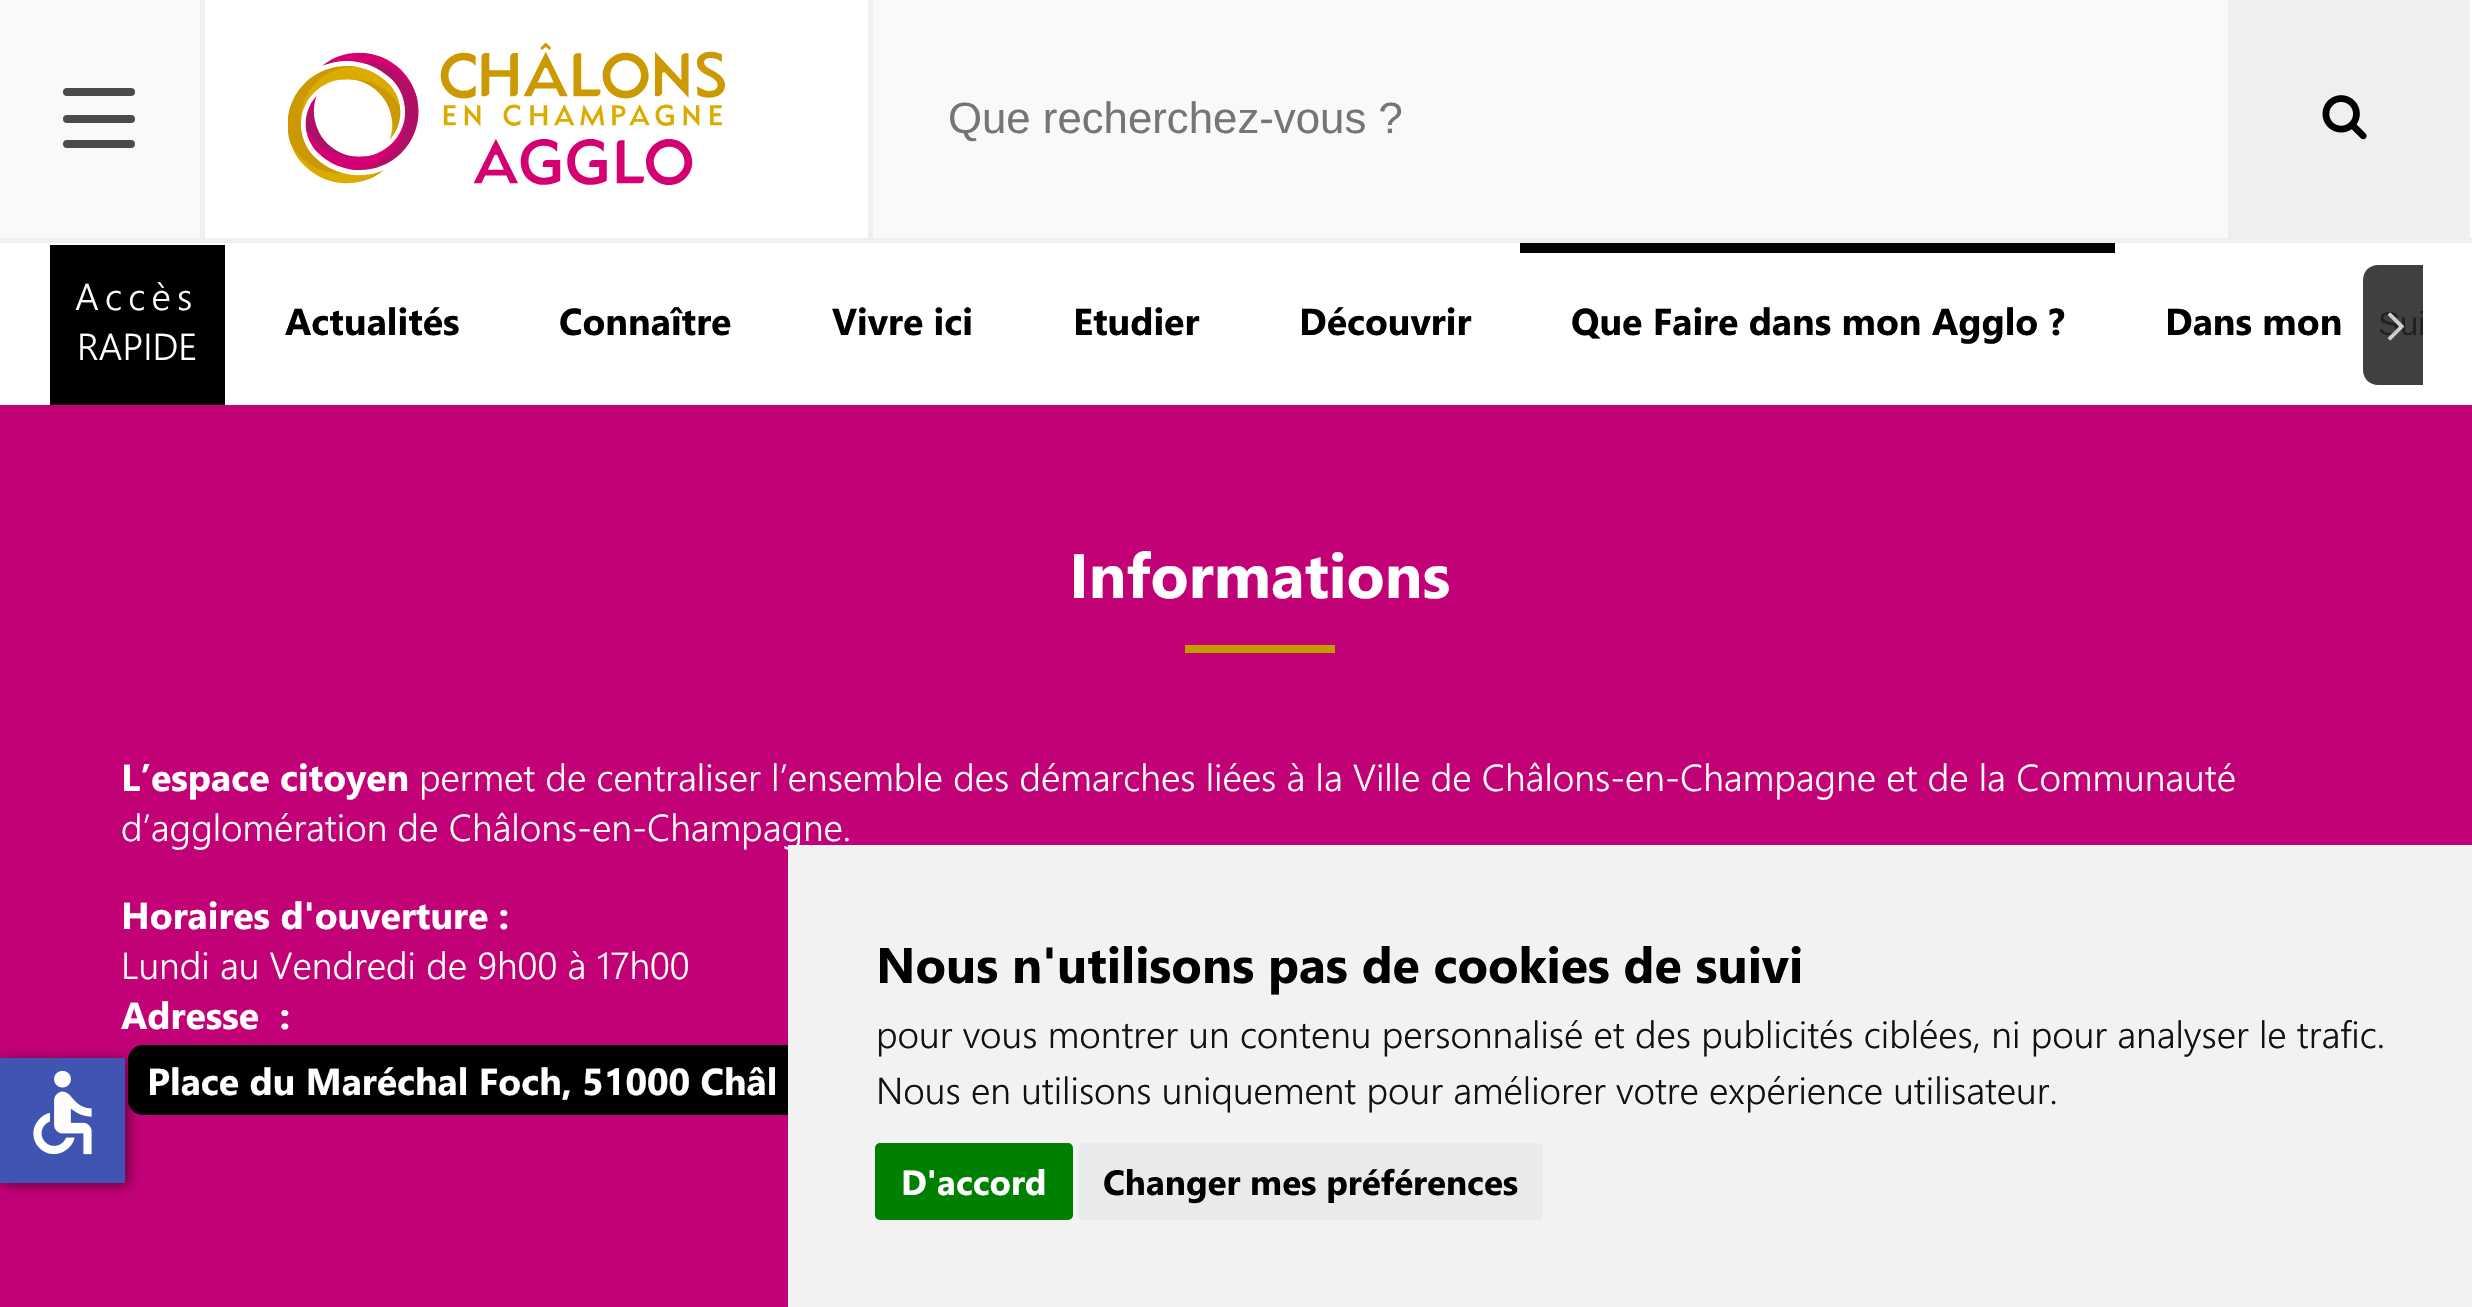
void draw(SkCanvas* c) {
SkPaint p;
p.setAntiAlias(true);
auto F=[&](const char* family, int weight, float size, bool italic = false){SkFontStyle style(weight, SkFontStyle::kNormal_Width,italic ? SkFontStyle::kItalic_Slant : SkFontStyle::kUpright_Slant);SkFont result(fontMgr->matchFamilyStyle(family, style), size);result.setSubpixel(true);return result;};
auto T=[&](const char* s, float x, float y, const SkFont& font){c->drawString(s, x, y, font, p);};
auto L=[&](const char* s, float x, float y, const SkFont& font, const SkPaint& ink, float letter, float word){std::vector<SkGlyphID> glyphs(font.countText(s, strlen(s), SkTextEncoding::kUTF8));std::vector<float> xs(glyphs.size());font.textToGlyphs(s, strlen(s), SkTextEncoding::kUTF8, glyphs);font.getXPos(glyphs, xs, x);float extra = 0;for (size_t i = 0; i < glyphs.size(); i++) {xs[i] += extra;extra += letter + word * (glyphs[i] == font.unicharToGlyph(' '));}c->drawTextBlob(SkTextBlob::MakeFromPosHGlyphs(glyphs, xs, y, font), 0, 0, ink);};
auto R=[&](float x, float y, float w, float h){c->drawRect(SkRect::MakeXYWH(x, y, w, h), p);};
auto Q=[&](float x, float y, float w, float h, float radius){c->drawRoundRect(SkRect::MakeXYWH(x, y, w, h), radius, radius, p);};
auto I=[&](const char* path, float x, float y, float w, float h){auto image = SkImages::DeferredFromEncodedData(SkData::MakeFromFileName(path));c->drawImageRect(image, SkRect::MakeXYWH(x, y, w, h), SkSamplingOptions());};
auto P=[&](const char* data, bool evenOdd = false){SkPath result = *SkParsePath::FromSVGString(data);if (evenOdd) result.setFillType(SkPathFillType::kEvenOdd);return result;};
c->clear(0xffffffff);
p.setColor(0xffefefef);
R(0,238,2472,5);
p.setColor(0xfff9f9f9);
R(0,0,200,238);
p.setColor(0xff4b4b4b);
Q(63,88,72,8,4);
Q(63,115,72,8,4);
Q(63,140,72,8,4);
p.setColor(0xffefefef);
R(868,0,5,238);
R(200,0,5,238);
I("1.png",288,43,437,142);
p.setColor(0xfff9f9f9);
R(873,0,1355,238);
p.setColor(0xffefefef);
R(2228,0,242,238);
auto f1 = F("Liberation Sans",400,43.75);
p.setColor(0xff757575);
T("Que recherchez-vous ?",948,133,f1);
I("2.png",2322,95,45,45);
p.setColor(0xff000000);
R(50,245,175,160);
auto f2 = F("Segoe UI",300,37.5);
p.setColor(0xffffffff);
L("Accès",75,310,f2,p,6.25,0);
T("RAPIDE",77,360,f2);
auto f3 = F("Segoe UI",700,37.5);
p.setColor(0xff000000);
T("Actualités",285,335,f3);
T("Connaître",559,335,f3);
T("Vivre ici",832,335,f3);
T("Etudier",1073,335,f3);
T("Découvrir",1299,335,f3);
R(1520,243,595,10);
T("Que Faire dans mon Agglo ?",1571,335,f3);
T("Dans mon",2165,335,f3);
p.setColor(0xbf000000);
c->drawPath(P("M2378 265h45v120h-45c-8.5 0-15-6.5-15-15v-90c0-8.5 6.5-15 15-15z"),p);
c->save();
c->clipRect(SkRect::MakeXYWH(50,243,2373,162));
auto f4 = F("Liberation Sans",400,33);
p.setColor(0xff212121);
T("Sui",2378,335,f4);
c->restore();
I("3.png",2387,312,17,29);
p.setColor(0xffc20177);
R(0,405,2472,902);
auto f5 = F("Segoe UI",700,62.5);
p.setColor(0xffffffff);
T("Informations",1069,598,f5);
p.setColor(0xffc49b00);
R(1185,645,150,8);
p.setColor(0xffffffff);
T("L’espace citoyen",121,791,f3);
T("permet de centraliser l’ensemble des démarches liées à la Ville de Châlons-en-Champagne et de la Communauté",419,791,f2);
T("d’agglomération de Châlons-en-Champagne.",121,841,f2);
T("Horaires d'ouverture :",121,929,f3);
T("Lundi au Vendredi de 9h00 à 17h00",121,979,f2);
T("Adresse  :",121,1029,f3);
p.setColor(0xff000000);
Q(128,1045,1065,70,15);
p.setColor(0xffffffff);
T("Place du Maréchal Foch, 51000 Châl",147,1095,f3);
p.setColor(0x80000000);
p.setMaskFilter(SkMaskFilter::MakeBlur(kNormal_SkBlurStyle, 6));
c->drawRect(SkRect::MakeXYWH(3,1060,125,125),p);
p.setMaskFilter(nullptr);
p.setColor(0xff4054b2);
R(0,1058,125,125);
I("4.png",33,1070,59,85);
p.setColor(0xfff2f2f2);
R(788,845,1684,462);
auto f6 = F("Segoe UI",700,50);
p.setColor(0xff000000);
T("Nous n'utilisons pas de cookies de suivi",876,983,f6);
p.setColor(0xff111111);
T("pour vous montrer un contenu personnalisé et des publicités ciblées, ni pour analyser le trafic.",876,1048,f2);
T("Nous en utilisons uniquement pour améliorer votre expérience utilisateur.",876,1104,f2);
p.setColor(0xff008000);
Q(875,1143,198,77,5);
auto f7 = F("Segoe UI",700,35);
p.setColor(0xffffffff);
T("D'accord",901,1195,f7);
p.setColor(0xffeaeaea);
Q(1078,1143,465,77,5);
p.setColor(0xff000000);
T("Changer mes préférences",1103,1195,f7);
}
